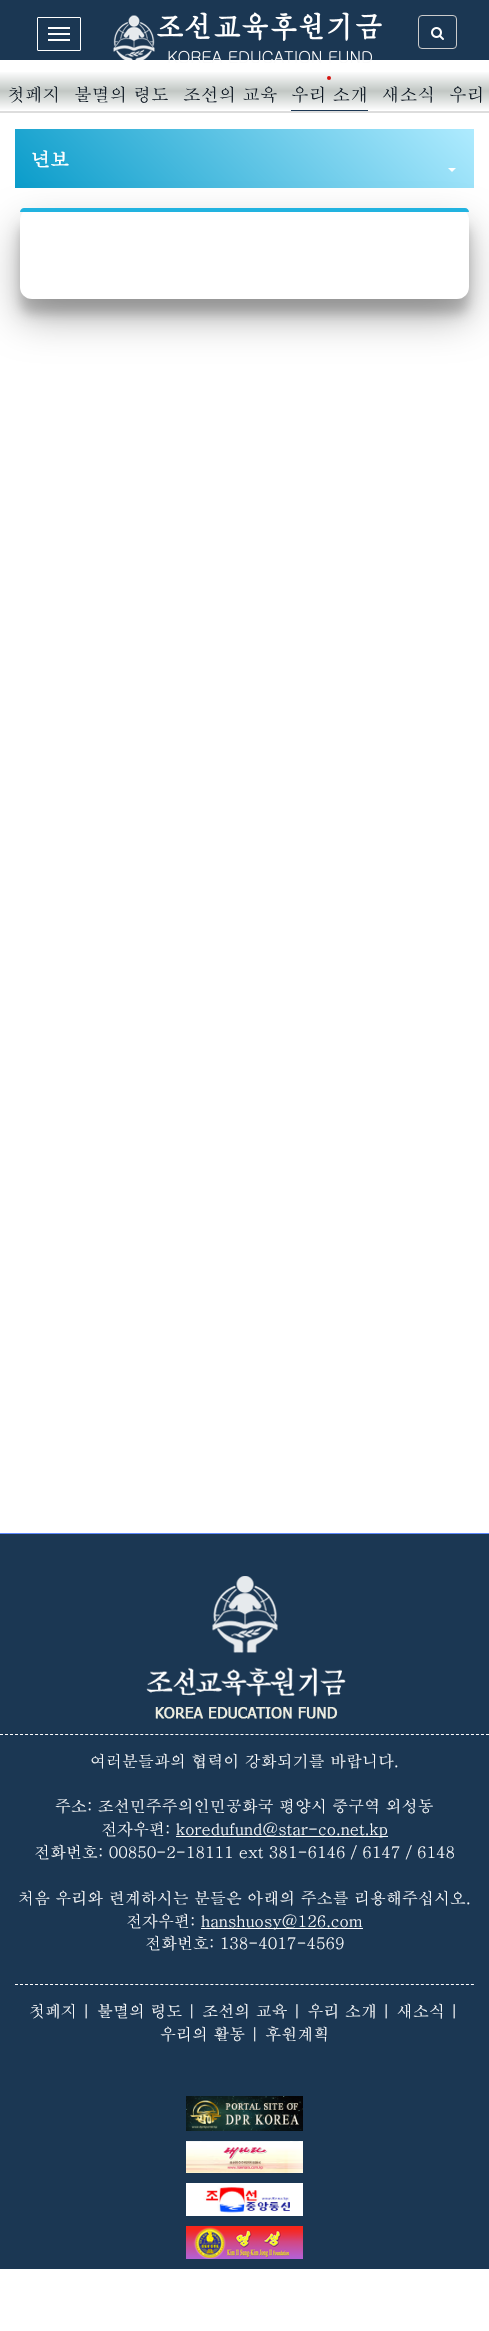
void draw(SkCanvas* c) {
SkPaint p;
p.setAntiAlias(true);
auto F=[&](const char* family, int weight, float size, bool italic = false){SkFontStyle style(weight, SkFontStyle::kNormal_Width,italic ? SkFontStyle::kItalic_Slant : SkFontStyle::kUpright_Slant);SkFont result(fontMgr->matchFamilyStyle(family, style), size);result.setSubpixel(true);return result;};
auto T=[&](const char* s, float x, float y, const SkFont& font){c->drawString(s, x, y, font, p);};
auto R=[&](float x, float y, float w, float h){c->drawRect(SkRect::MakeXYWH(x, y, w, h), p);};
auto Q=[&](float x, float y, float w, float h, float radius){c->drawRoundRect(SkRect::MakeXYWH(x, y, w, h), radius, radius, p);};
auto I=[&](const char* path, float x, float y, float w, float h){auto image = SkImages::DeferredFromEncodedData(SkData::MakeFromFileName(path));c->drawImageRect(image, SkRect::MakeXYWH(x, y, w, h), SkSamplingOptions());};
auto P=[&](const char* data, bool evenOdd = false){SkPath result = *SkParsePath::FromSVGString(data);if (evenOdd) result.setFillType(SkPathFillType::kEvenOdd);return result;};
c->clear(0xffffffff);
p.setColor(0xff1b3753);
R(0,0,489,60);
p.setStroke(true);
p.setStrokeWidth(1);
p.setColor(0xffffffff);
c->drawRoundRect(SkRect::MakeXYWH(37.5,17.5,43,33),.5,.5,p);
p.setStroke(false);
R(48,27,22,2);
R(48,33,22,2);
R(48,39,22,2);
I("1.png",113,12,269,51);
p.setStroke(true);
p.setColor(0xffcccccc);
c->drawRoundRect(SkRect::MakeXYWH(418.5,15.5,38,33),3.5,3.5,p);
I("2.png",431,27,13,13);
p.setStroke(false);
{
const SkColor colors[] = {0xffffffff,0xffc1c7c4,0xffffffff};
const float stops[] = {0,.5,1};
const SkPoint ends[] = {{245,71}, {245,111}};
p.setShader(SkGradientShader::MakeLinear(ends, colors, stops, 3, SkTileMode::kClamp));
p.setAlpha(255);
}
R(0,72,489,38);
p.setShader(nullptr);
p.setColor(0xffdddddd);
R(0,111,489,2);
auto f1 = F("Batang",400,17.75);
p.setColor(0xff0c1621);
T("첫페지",7,101,f1);
T("불멸의 령도",74,101,f1);
T("조선의 교육",183,101,f1);
p.setColor(0xff1b3753);
R(291,110,77,1);
p.setColor(0xffd6130f);
c->drawCircle(329,78,2,p);
p.setColor(0xff0c1621);
T("우리 소개",291,101,f1);
T("새소식",382,101,f1);
T("우리",449,101,f1);
{
const SkColor colors[] = {0xff0a9cca,0xffafebff};
const float stops[] = {0,1};
const SkPoint ends[] = {{115,288}, {374,29}};
p.setShader(SkGradientShader::MakeLinear(ends, colors, stops, 2, SkTileMode::kClamp));
p.setAlpha(255);
}
R(15,129,459,59);
auto f2 = F("Batang",700,19);
p.setShader(nullptr);
p.setColor(0xffffffff);
T("년보",31,166,f2);
c->drawPath(P("M448 168h8l-4 4z"),p);
p.setColor(0x33000000);
p.setMaskFilter(SkMaskFilter::MakeBlur(kNormal_SkBlurStyle, 6));
c->drawRoundRect(SkRect::MakeXYWH(20,223,449,91),12,12,p);
p.setMaskFilter(nullptr);
p.setColor(0x4d000000);
p.setMaskFilter(SkMaskFilter::MakeBlur(kNormal_SkBlurStyle, 19));
c->drawRoundRect(SkRect::MakeXYWH(20,227,449,91),12,12,p);
p.setMaskFilter(nullptr);
p.setColor(0xffffffff);
Q(20,208,449,91,12);
p.setColor(0xff22b3e0);
c->drawPath(P("M24 208h441c2 0 4 2 4 4h-449c0-2 2-4 4-4z"),p);
p.setColor(0xff1b3753);
R(0,1534,489,735);
p.setColor(0xff5e88fc);
R(0,1533,489,1);
p.setStroke(true);
p.setColor(0xffffffff);
p.setPathEffect(SkDashPathEffect::Make({{3,2.01f}}, 0));
c->drawPath(P("M0 1734.5h489"),p);
p.setPathEffect(nullptr);
I("3.png",146,1576,200,143);
auto f3 = F("Batang",400,16);
p.setStroke(false);
T("여러분들과의 협력이 강화되기를 바랍니다.",90,1767,f3);
T("주소: 조선민주주의인민공화국 평양시 중구역 외성동",55,1812,f3);
T("전자우편:",101,1835,f3);
R(176,1836,212,1);
T("koredufund@star-co.net.kp",176,1835,f3);
T("전화번호: 00850-2-18111 ext 381-6146 / 6147 / 6148",34,1858,f3);
T("처음 우리와 련계하시는 분들은 아래의 주소를 리용해주십시오.",18,1904,f3);
T("전자우편:",126,1927,f3);
R(201,1928,162,1);
T("hanshuosy@126.com",201,1927,f3);
T("전화번호: 138-4017-4569",145,1949,f3);
p.setStroke(true);
p.setPathEffect(SkDashPathEffect::Make({{3,2.01f}}, 0));
c->drawPath(P("M15 1984.5h459"),p);
p.setPathEffect(nullptr);
p.setStroke(false);
T("첫페지 | 불멸의 령도 | 조선의 교육 | 우리 소개 | 새소식 |",29,2017,f3);
T("우리의 활동 | 후원계획",160,2040,f3);
I("4.png",186,2096,117,35);
I("5.png",186,2141,117,32);
I("6.png",186,2183,117,33);
I("7.png",186,2226,117,33);
}
